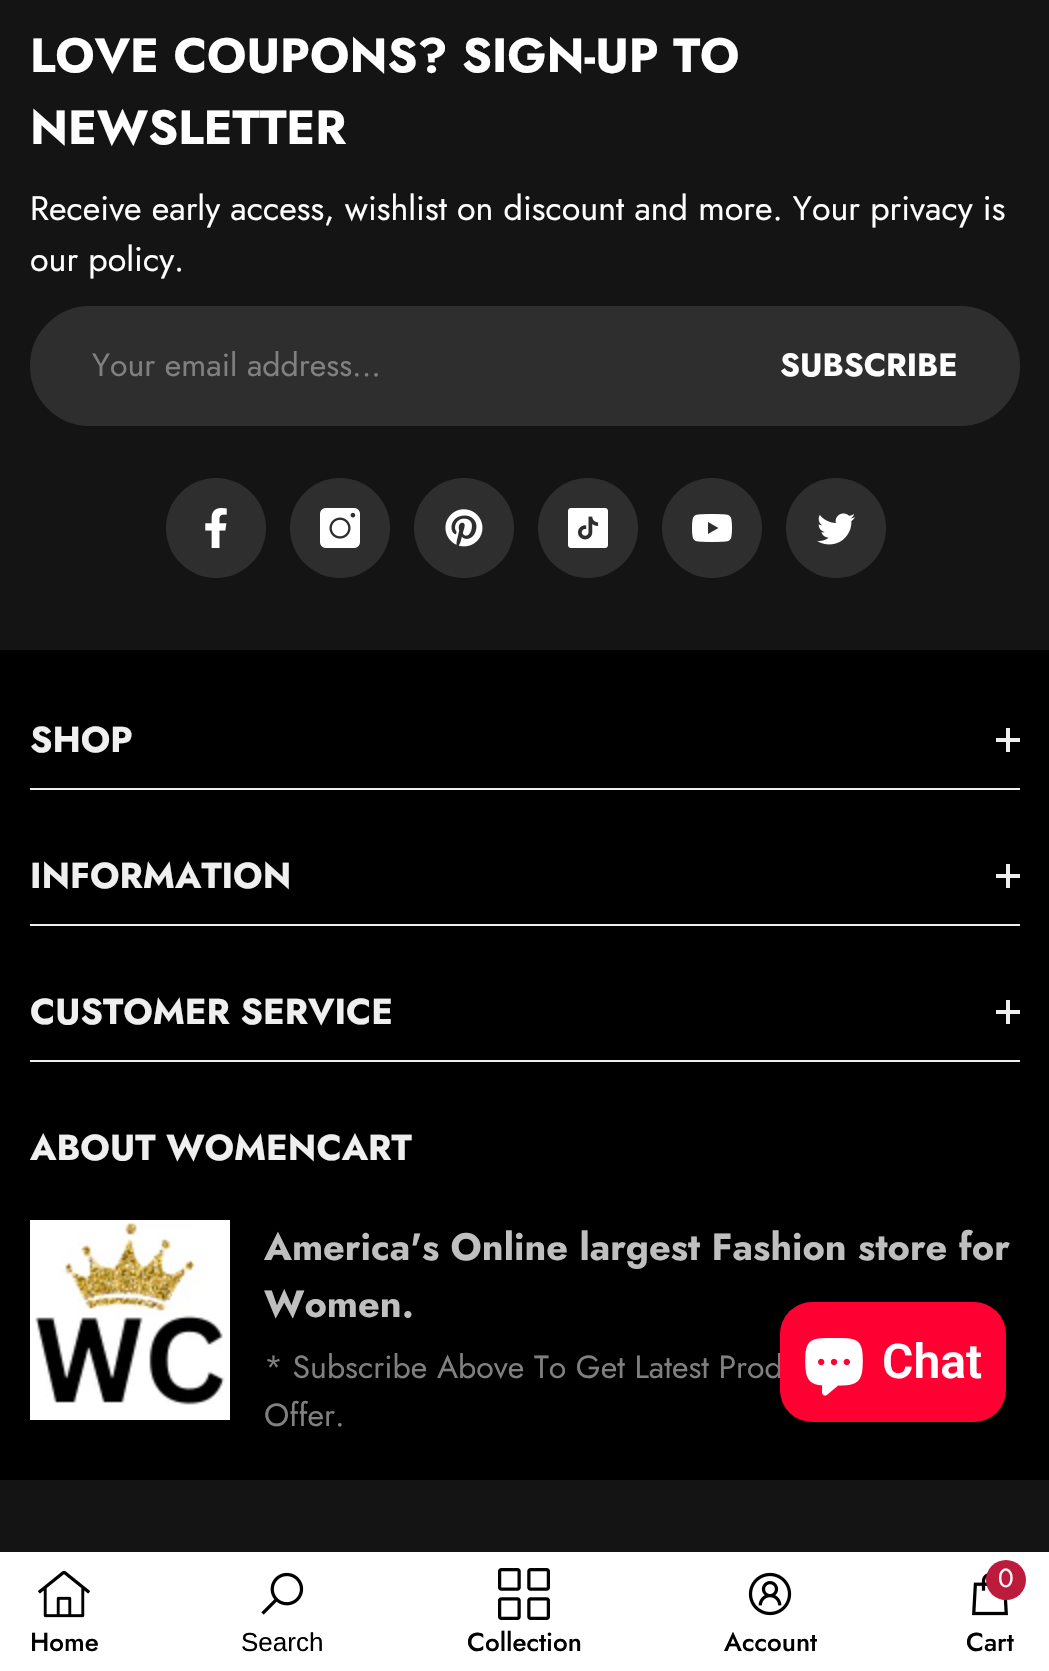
void draw(SkCanvas* c) {
SkPaint p;
p.setAntiAlias(true);
auto F=[&](const char* family, int weight, float size, bool italic = false){SkFontStyle style(weight, SkFontStyle::kNormal_Width,italic ? SkFontStyle::kItalic_Slant : SkFontStyle::kUpright_Slant);SkFont result(fontMgr->matchFamilyStyle(family, style), size);result.setSubpixel(true);return result;};
auto T=[&](const char* s, float x, float y, const SkFont& font){c->drawString(s, x, y, font, p);};
auto R=[&](float x, float y, float w, float h){c->drawRect(SkRect::MakeXYWH(x, y, w, h), p);};
auto Q=[&](float x, float y, float w, float h, float radius){c->drawRoundRect(SkRect::MakeXYWH(x, y, w, h), radius, radius, p);};
auto I=[&](const char* path, float x, float y, float w, float h){auto image = SkImages::DeferredFromEncodedData(SkData::MakeFromFileName(path));c->drawImageRect(image, SkRect::MakeXYWH(x, y, w, h), SkSamplingOptions());};
c->clear(0xff141414);
auto f1 = F("Jost",700,48);
p.setColor(0xffffffff);
T("LOVE COUPONS? SIGN-UP TO",30,72,f1);
T("NEWSLETTER",30,144,f1);
auto f2 = F("Jost",400,34);
T("Receive early access, wishlist on discount and more. Your privacy is",30,220,f2);
T("our policy.",30,271,f2);
p.setColor(0xff2e2e2e);
c->drawRoundRect(SkRect::MakeXYWH(31,307,988,118),59,59,p);
p.setStroke(true);
p.setStrokeWidth(2);
c->drawRoundRect(SkRect::MakeXYWH(31,307,988,118),59,59,p);
auto f3 = F("Jost",400,32);
p.setStroke(false);
p.setColor(0xff808080);
T("Your email address...",92,376,f3);
auto f4 = F("Jost",700,32);
p.setColor(0xffffffff);
T("SUBSCRIBE",780,376,f4);
p.setColor(0xff2e2e2e);
c->drawCircle(216,528,50,p);
I("1.png",205,508,22,40);
c->drawCircle(340,528,50,p);
I("2.png",320,508,40,40);
c->drawCircle(464,528,50,p);
I("3.png",445,509,38,38);
c->drawCircle(588,528,50,p);
I("4.png",568,508,40,40);
c->drawCircle(712,528,50,p);
I("5.png",692,514,40,28);
c->drawCircle(836,528,50,p);
I("6.png",817,513,38,32);
p.setColor(0xff000000);
R(0,650,1049,830);
p.setColor(0xffefefef);
R(30,788,990,2);
auto f5 = F("Jost",700,36);
T("SHOP",30,752,f5);
R(1006,728,4,24);
R(996,738,24,4);
R(30,924,990,2);
T("INFORMATION",30,888,f5);
R(1006,864,4,24);
R(996,874,24,4);
R(30,1060,990,2);
T("CUSTOMER SERVICE",30,1024,f5);
R(1006,1000,4,24);
R(996,1010,24,4);
T("ABOUT WOMENCART",30,1160,f5);
I("7.png",30,1220,200,200);
auto f6 = F("Jost",700,38);
p.setColor(0xffbfbfbf);
T("America's Online largest Fashion store for",264,1260,f6);
T("Women.",264,1317,f6);
p.setColor(0xff808080);
T("* Subscribe Above To Get Latest Prod",264,1378,f3);
T("Offer.",264,1426,f3);
p.setColor(0xffff0033);
Q(780,1302,226,120,32);
I("8.png",805,1338,58,58);
auto f7 = F("Roboto",600,48);
p.setColor(0xffffffff);
T("Chat",882,1378,f7);
R(0,1552,1049,119);
I("9.png",38,1570,52,48);
auto f8 = F("Jost",500,26);
p.setColor(0xff000000);
T("Home",30,1651,f8);
I("10.png",261,1572,43,43);
auto f9 = F("Liberation Sans",400,26);
T("Search",241,1651,f9);
I("11.png",498,1568,52,52);
T("Collection",467,1651,f8);
I("12.png",748,1572,44,44);
T("Account",724,1651,f8);
I("13.png",972,1573,36,43);
p.setColor(0xffbc1b3b);
c->drawCircle(1006,1580,20,p);
auto f10 = F("Jost",400,26);
p.setColor(0xffffffff);
T("0",998,1587,f10);
p.setColor(0xff000000);
T("Cart",966,1651,f8);
}
